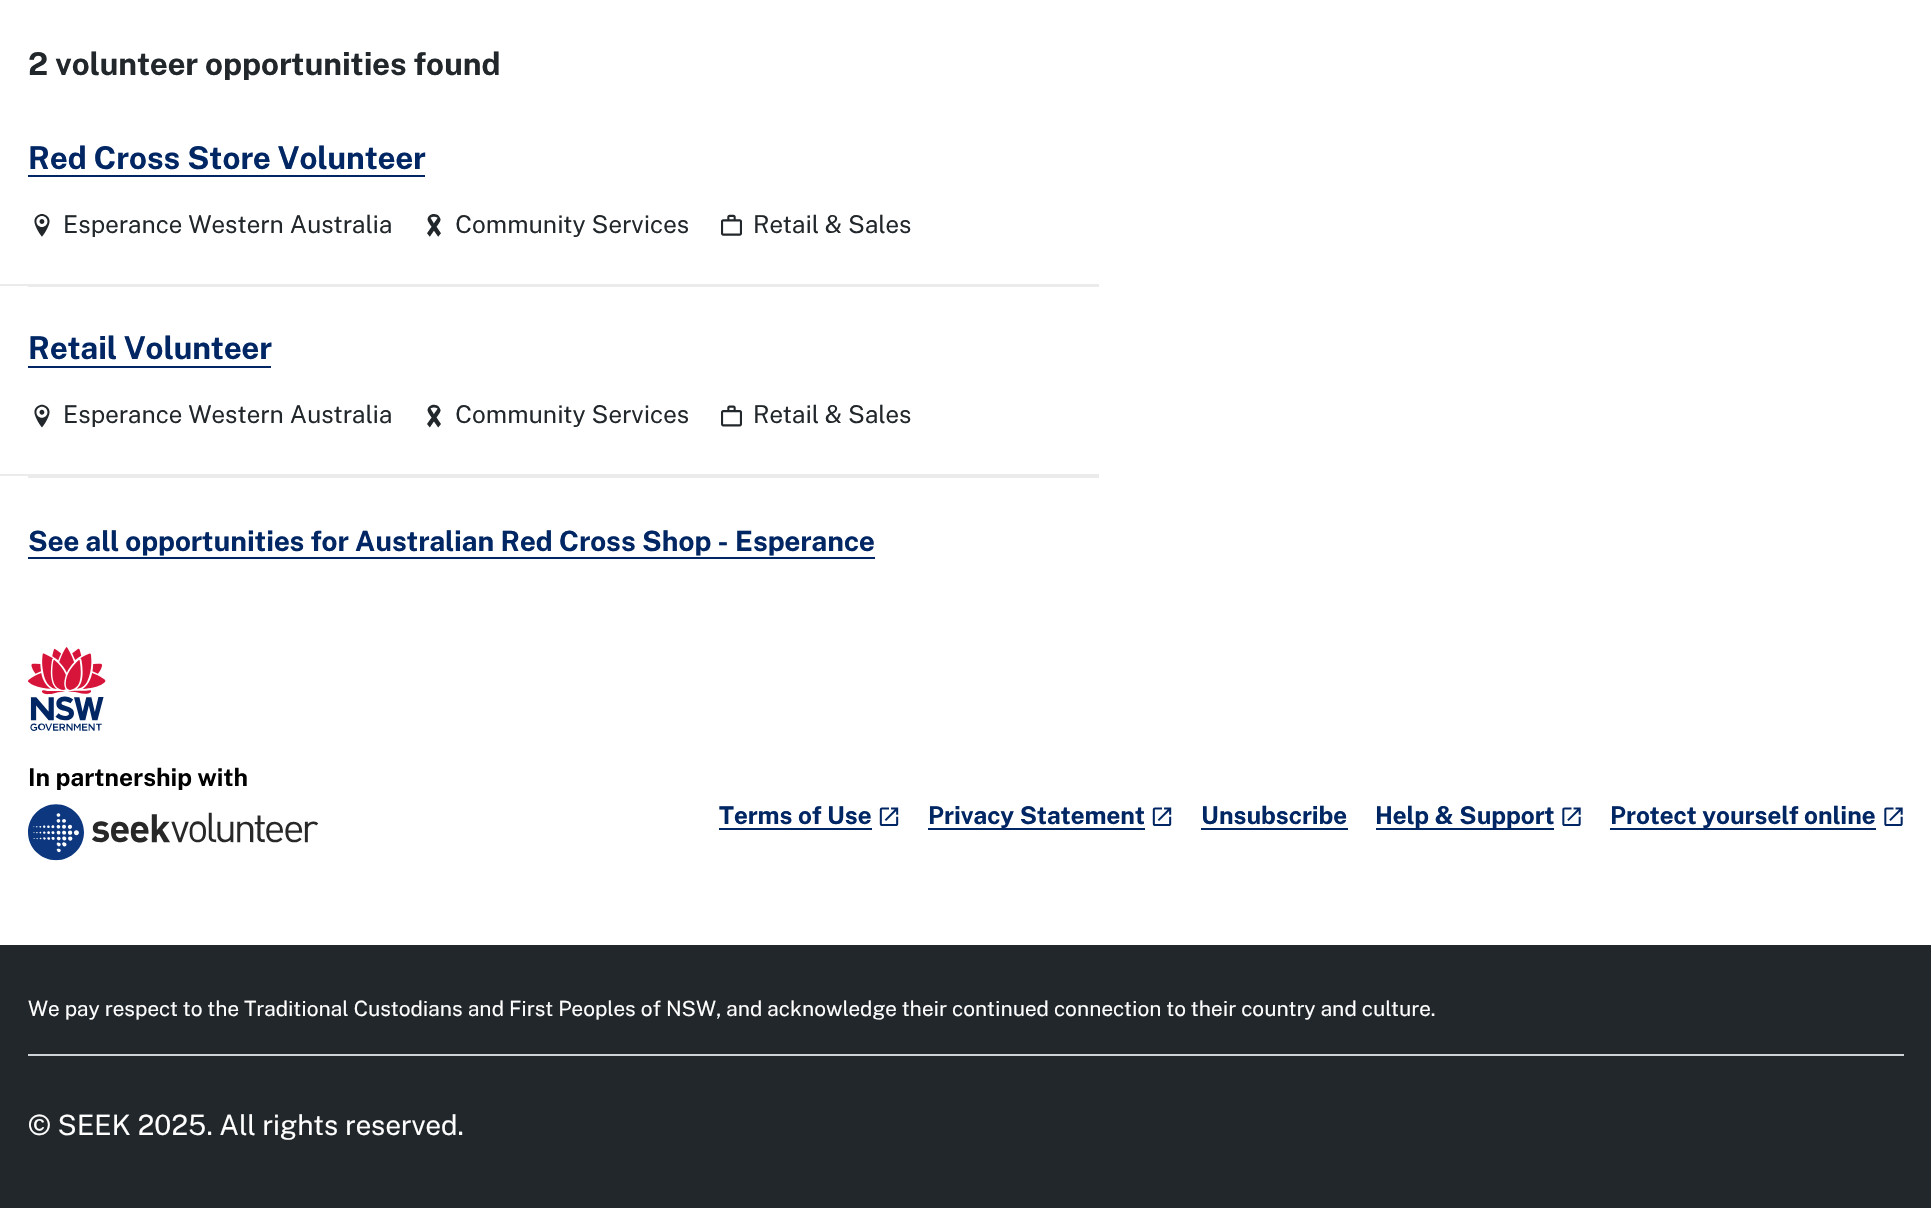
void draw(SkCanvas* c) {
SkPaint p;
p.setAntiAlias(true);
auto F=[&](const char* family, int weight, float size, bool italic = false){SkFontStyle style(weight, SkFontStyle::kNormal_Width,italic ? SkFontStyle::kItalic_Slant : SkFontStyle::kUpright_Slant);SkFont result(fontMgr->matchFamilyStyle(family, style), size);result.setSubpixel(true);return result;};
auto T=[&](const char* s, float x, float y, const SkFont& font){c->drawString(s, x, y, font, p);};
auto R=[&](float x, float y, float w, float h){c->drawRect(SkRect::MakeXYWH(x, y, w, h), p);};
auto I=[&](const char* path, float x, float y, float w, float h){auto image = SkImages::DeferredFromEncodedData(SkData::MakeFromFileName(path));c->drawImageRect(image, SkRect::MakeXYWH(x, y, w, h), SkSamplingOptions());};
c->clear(0xffffffff);
auto f1 = F("Public Sans",700,31.5);
p.setColor(0xff22272b);
T("2 volunteer opportunities found",28,75,f1);
p.setColor(0xffebebeb);
R(28,286,1071,1);
R(0,284,1099,2);
p.setColor(0xff002664);
T("Red Cross Store Volunteer",28,169,f1);
R(28,175,397,2);
I("1.png",34,214,16,23);
auto f2 = F("Public Sans",400,24.5);
p.setColor(0xff22272b);
T("Esperance Western Australia",63,233,f2);
I("2.png",427,214,14,23);
T("Community Services",455,233,f2);
I("3.png",721,214,21,22);
T("Retail & Sales",753,233,f2);
p.setColor(0xffebebeb);
R(28,476,1071,2);
R(0,474,1099,2);
p.setColor(0xff002664);
T("Retail Volunteer",28,359,f1);
R(28,366,243,2);
I("4.png",34,404,16,24);
p.setColor(0xff22272b);
T("Esperance Western Australia",63,423,f2);
I("5.png",427,404,14,24);
T("Community Services",455,423,f2);
I("6.png",721,405,21,22);
T("Retail & Sales",753,423,f2);
auto f3 = F("Public Sans",700,28);
p.setColor(0xff002664);
T("See all opportunities for Australian Red Cross Shop - Esperance",28,551,f3);
R(28,557,847,2);
I("7.png",28,647,291,214);
auto f4 = F("Public Sans",700,24.5);
T("Terms of Use",719,824,f4);
R(719,828,153,2);
I("8.png",879,807,20,19);
R(928,828,217,2);
T("Privacy Statement",928,824,f4);
I("8.png",1152,807,20,19);
T("Unsubscribe",1201,824,f4);
R(1201,828,147,2);
T("Help & Support",1375,824,f4);
R(1376,828,178,2);
I("9.png",1562,807,19,19);
R(1610,828,266,2);
T("Protect yourself online",1610,824,f4);
I("9.png",1884,807,19,19);
p.setColor(0xff22272b);
R(0,945,1931,263);
auto f5 = F("Public Sans",400,21);
p.setColor(0xffffffff);
T("We pay respect to the Traditional Custodians and First Peoples of NSW, and acknowledge their continued connection to their country and culture.",28,1016,f5);
p.setColor(0xffcdd3d6);
R(28,1054,1876,2);
auto f6 = F("Public Sans",400,28);
p.setColor(0xffffffff);
T("© SEEK 2025. All rights reserved.",28,1135,f6);
}
